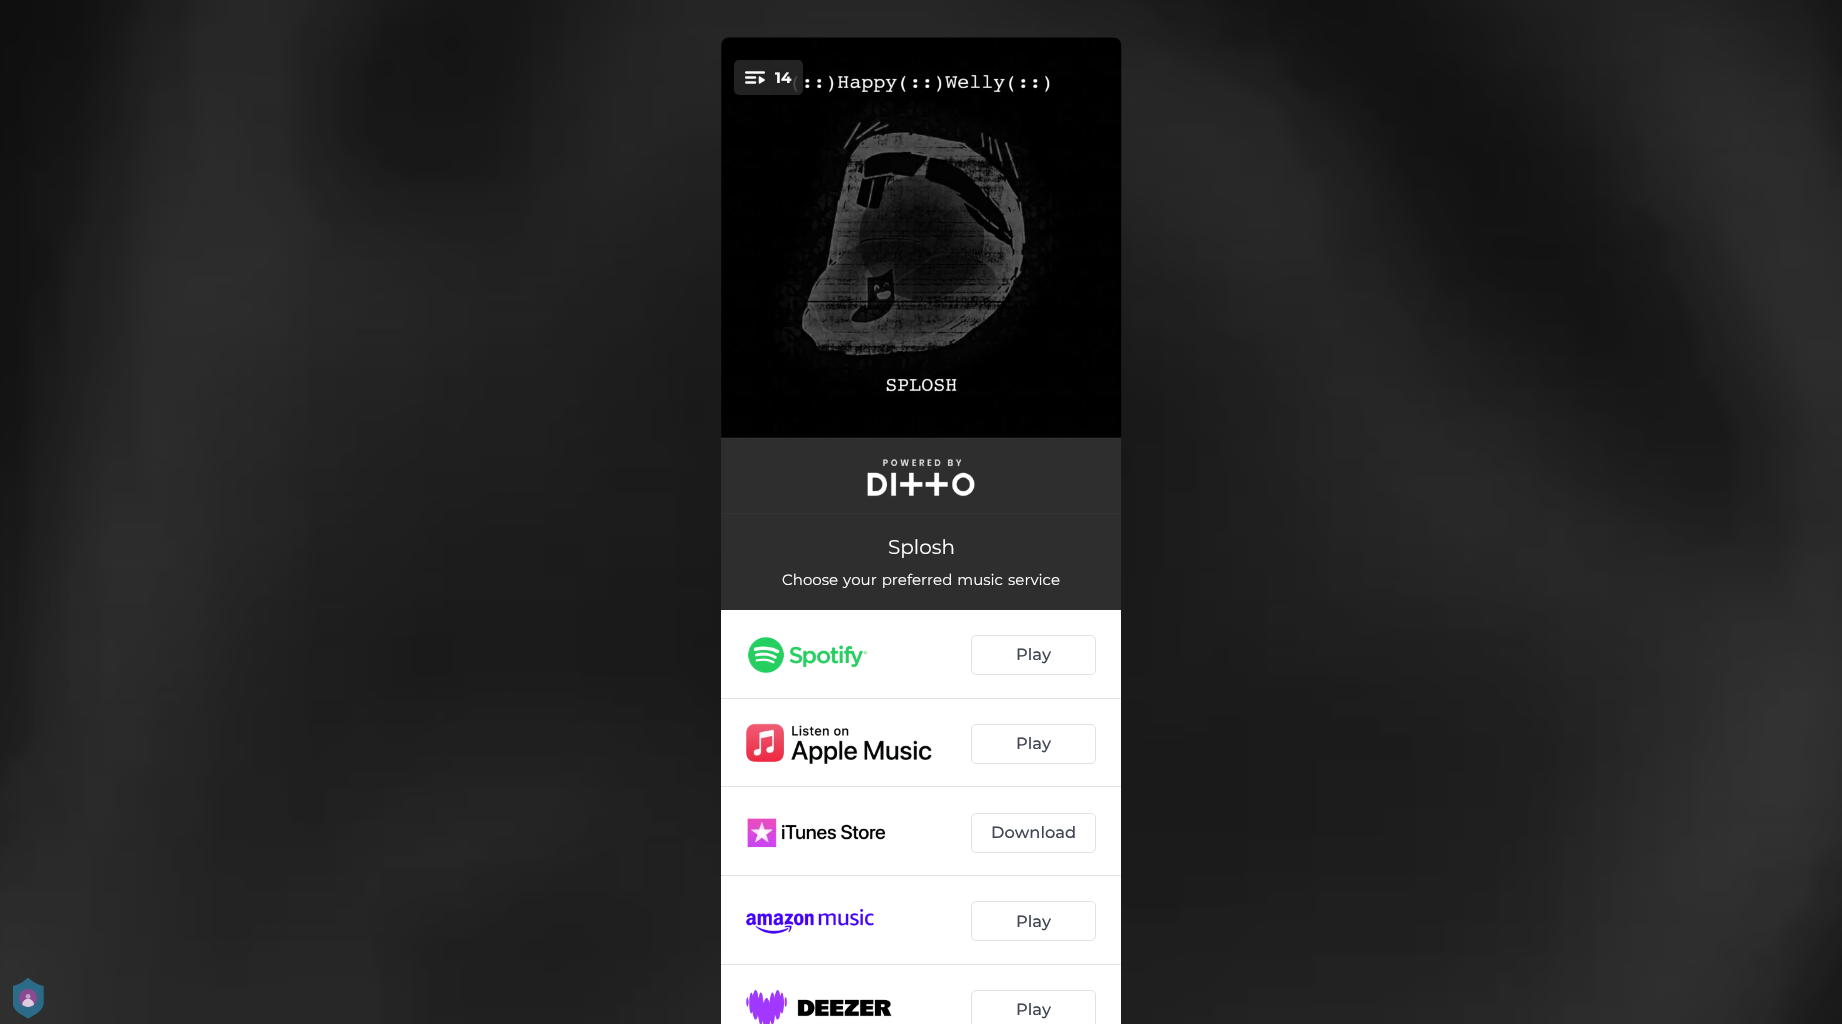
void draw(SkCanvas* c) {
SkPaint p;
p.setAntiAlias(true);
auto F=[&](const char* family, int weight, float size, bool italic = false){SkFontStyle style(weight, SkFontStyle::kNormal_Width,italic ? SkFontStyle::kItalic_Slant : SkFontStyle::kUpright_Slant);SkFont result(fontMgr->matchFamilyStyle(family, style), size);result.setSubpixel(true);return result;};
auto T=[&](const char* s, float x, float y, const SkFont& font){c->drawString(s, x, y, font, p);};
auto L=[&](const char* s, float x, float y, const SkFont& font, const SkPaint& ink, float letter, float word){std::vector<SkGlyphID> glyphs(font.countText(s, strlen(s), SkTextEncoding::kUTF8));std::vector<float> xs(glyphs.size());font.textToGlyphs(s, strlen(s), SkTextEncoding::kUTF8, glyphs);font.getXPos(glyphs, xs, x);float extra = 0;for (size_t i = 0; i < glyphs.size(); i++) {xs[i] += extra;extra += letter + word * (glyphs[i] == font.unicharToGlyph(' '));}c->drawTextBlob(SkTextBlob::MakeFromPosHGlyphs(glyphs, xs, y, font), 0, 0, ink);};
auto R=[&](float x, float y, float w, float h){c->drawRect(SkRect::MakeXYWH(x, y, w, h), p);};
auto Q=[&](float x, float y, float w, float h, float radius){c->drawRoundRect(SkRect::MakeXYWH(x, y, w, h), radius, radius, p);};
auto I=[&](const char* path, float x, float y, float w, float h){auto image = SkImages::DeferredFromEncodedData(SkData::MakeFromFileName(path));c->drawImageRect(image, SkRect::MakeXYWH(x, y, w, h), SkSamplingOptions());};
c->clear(0xffffffff);
I("2.png",0,0,1842,1024);
I("1.png",13,978,31,41);
I("3.png",721,37,401,401);
p.setColor(0xd9282828);
Q(734,60,69,35,5);
I("4.png",745,71,20,13);
auto f1 = F("Montserrat",700,15);
p.setColor(0xffffffff);
T("14",775,83,f1);
p.setColor(0x73000000);
c->drawCircle(921.5,237.5,62.5,p);
p.setColor(0xff2e2e2e);
R(721,439,400,74);
p.setColor(0xff333333);
R(721,438,400,1);
R(721,513,400,1);
I("5.png",867,459,108,38);
p.setColor(0xff2e2e2e);
R(721,514,400,96);
auto f2 = F("Montserrat",400,20);
p.setColor(0xffffffff);
T("Splosh",888,554,f2);
auto f3 = F("Montserrat",400,15);
L("Choose your preferred music service",782,585,f3,p,0,1);
R(721,610,400,414);
p.setColor(0xffe1e1e4);
R(721,698,400,1);
I("6.png",747,637,121,36);
p.setStroke(true);
p.setStrokeWidth(1);
c->drawRoundRect(SkRect::MakeXYWH(971.5,635.5,124,39),4.5,4.5,p);
auto f4 = F("Montserrat",500,16.25);
p.setStroke(false);
p.setColor(0xff414754);
T("Play",1016,660,f4);
p.setColor(0xffe1e1e4);
R(721,786,400,1);
I("7.png",746,723,186,41);
p.setStroke(true);
c->drawRoundRect(SkRect::MakeXYWH(971.5,724.5,124,39),4.5,4.5,p);
p.setStroke(false);
p.setColor(0xff414754);
T("Play",1016,749,f4);
p.setColor(0xffe1e1e4);
R(721,875,400,1);
I("8.png",747,818,139,30);
p.setStroke(true);
c->drawRoundRect(SkRect::MakeXYWH(971.5,813.5,124,39),4.5,4.5,p);
p.setStroke(false);
p.setColor(0xff414754);
T("Download",991,838,f4);
p.setColor(0xffe1e1e4);
R(721,964,400,1);
I("9.png",746,908,128,26);
p.setStroke(true);
c->drawRoundRect(SkRect::MakeXYWH(971.5,901.5,124,39),4.5,4.5,p);
p.setStroke(false);
p.setColor(0xff414754);
T("Play",1016,927,f4);
I("10.png",746,990,146,34);
p.setStroke(true);
p.setColor(0xffe1e1e4);
c->drawRoundRect(SkRect::MakeXYWH(971.5,990.5,124,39),4.5,4.5,p);
p.setStroke(false);
p.setColor(0xff414754);
T("Play",1016,1015,f4);
}
